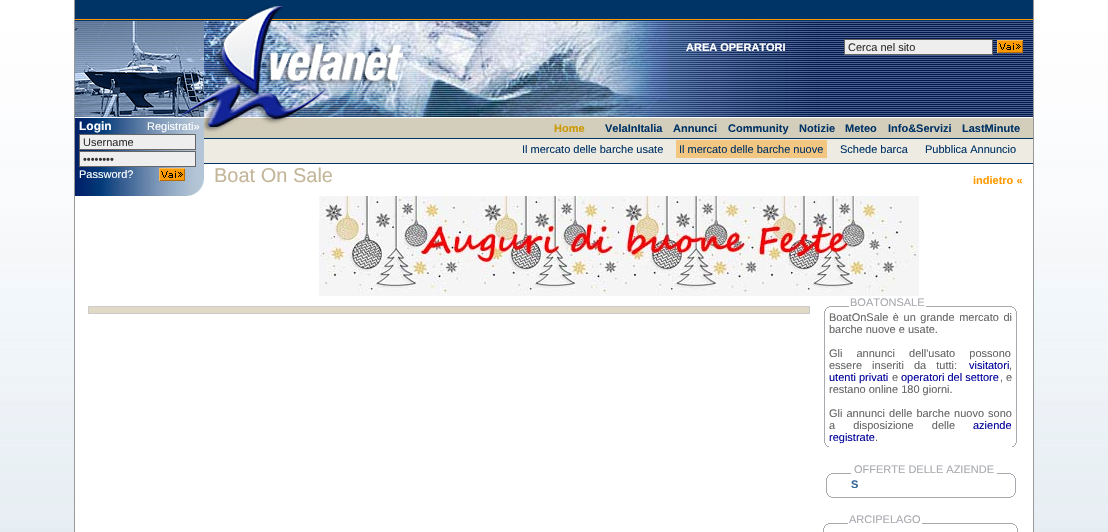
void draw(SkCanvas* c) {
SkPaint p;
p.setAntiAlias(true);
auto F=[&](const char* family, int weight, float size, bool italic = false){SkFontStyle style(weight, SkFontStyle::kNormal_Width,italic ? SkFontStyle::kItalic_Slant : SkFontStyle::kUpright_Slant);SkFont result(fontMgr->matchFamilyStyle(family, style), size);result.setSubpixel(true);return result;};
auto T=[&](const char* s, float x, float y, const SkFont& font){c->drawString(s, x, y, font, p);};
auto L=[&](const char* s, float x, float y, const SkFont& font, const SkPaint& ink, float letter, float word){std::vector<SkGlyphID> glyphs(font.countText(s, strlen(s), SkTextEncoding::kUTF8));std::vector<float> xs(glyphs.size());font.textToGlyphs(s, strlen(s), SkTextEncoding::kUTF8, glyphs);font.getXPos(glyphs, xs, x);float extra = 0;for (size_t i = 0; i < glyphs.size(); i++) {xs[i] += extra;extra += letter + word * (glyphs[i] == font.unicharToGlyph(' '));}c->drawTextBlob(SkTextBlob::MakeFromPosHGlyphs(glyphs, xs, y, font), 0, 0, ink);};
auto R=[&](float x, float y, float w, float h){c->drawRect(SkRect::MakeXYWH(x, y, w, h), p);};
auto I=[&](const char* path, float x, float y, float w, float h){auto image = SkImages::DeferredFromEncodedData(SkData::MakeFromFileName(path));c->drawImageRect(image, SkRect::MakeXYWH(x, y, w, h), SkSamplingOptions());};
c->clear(0xffffffff);
I("1.png",0,0,1108,532);
p.setColor(0xff999999);
R(1033,0,1,532);
R(74,0,1,532);
I("2.png",75,0,129,21);
I("3.png",204,0,829,21);
I("4.png",241,6,42,15);
I("5.png",75,21,129,96);
I("6.png",414,21,619,96);
I("7.png",204,21,210,96);
auto f1 = F("Liberation Sans",700,11);
p.setColor(0xffffffff);
T("AREA OPERATORI",686,51,f1);
p.setColor(0xffeeeeee);
c->drawRect(SkRect::MakeXYWH(844.5,39.5,148,15),p);
p.setStroke(true);
p.setStrokeWidth(1);
p.setColor(0xff666666);
c->drawRect(SkRect::MakeXYWH(844.5,39.5,148,15),p);
auto f2 = F("Liberation Sans",400,11);
p.setStroke(false);
p.setColor(0xff333333);
T("Cerca nel sito",848,51,f2);
I("8.png",997,40,26,13);
p.setColor(0xffffffff);
R(75,117,129,1);
R(305,117,728,1);
I("9.png",204,117,101,1);
I("10.png",75,118,129,78);
auto f3 = F("Liberation Sans",700,12);
T("Login",79,130,f3);
T("Registrati»",147,130,f2);
p.setColor(0xffeeeeee);
c->drawRect(SkRect::MakeXYWH(79.5,134.5,116,15),p);
p.setStroke(true);
p.setColor(0xff666666);
c->drawRect(SkRect::MakeXYWH(79.5,134.5,116,15),p);
p.setStroke(false);
p.setColor(0xff333333);
T("Username",83,146,f2);
p.setColor(0xffeeeeee);
c->drawRect(SkRect::MakeXYWH(79.5,151.5,116,15),p);
p.setStroke(true);
p.setColor(0xff666666);
c->drawRect(SkRect::MakeXYWH(79.5,151.5,116,15),p);
p.setStroke(false);
p.setColor(0xff333333);
T("••••••••",83,163,f2);
p.setColor(0xffffffff);
T("Password?",79,178,f2);
I("8.png",159,168,26,13);
R(204,164,829,32);
p.setColor(0xffd3cdbb);
R(204,134,100,4);
p.setColor(0xff003366);
R(204,138,829,1);
I("11.png",204,118,100,16);
p.setColor(0xffd3cdbb);
R(304,118,729,20);
p.setColor(0xffcc9900);
T("Home",554,132,f1);
p.setColor(0xff003366);
T("VelaInItalia",605,132,f1);
T("Annunci",673,132,f1);
T("Community",728,132,f1);
T("Notizie",799,132,f1);
T("Meteo",845,132,f1);
T("Info&Servizi",888,132,f1);
T("LastMinute",962,132,f1);
p.setColor(0xffeeebe2);
R(204,139,829,24);
p.setColor(0xff003366);
T("Il mercato delle barche usate",522,153,f2);
p.setColor(0xfff3c682);
R(676,140,151,18);
p.setColor(0xff003366);
T("Il mercato delle barche nuove",679,153,f2);
T("Schede barca",840,153,f2);
T("Pubblica Annuncio",925,153,f2);
R(204,163,829,1);
auto f4 = F("Liberation Sans",400,20);
p.setColor(0xffc4b799);
T("Boat On Sale",214,182,f4);
p.setColor(0xffff9900);
T("indietro «",973,184,f1);
p.setColor(0xffffffff);
R(75,196,958,100);
I("12.png",319,196,600,100);
R(75,296,958,236);
p.setColor(0xffcccccc);
R(88,306,722,8);
p.setColor(0xffe0d9c6);
R(89,307,720,6);
p.setColor(0xffa8aaaf);
R(829,306,20,1);
T("BOATONSALE",850,306,f2);
R(926,306,86,1);
I("13.png",825,307,4,4);
I("14.png",1012,307,4,4);
R(824,311,1,132);
p.setColor(0xff666666);
L("BoatOnSale è un grande mercato di",829,321,f2,p,0,1.5);
T("barche nuove e usate.",829,333,f2);
L("Gli annunci dell'usato possono",829,357,f2,p,0,11);
L("essere inseriti da tutti:",829,369,f2,p,0,7);
p.setColor(0xff000099);
T("visitatori",969,369,f2);
p.setColor(0xff666666);
T(",",1009,369,f2);
p.setColor(0xff000099);
T("utenti privati",829,381,f2);
p.setColor(0xff666666);
T("e",892,381,f2);
p.setColor(0xff000099);
T("operatori del settore",901,381,f2);
p.setColor(0xff666666);
T(", e",1000,381,f2);
T("restano online 180 giorni.",829,393,f2);
L("Gli annunci delle barche nuovo sono",829,417,f2,p,0,1);
L("a disposizione delle",829,429,f2,p,0,15);
p.setColor(0xff000099);
T("aziende",973,429,f2);
T("registrate",829,441,f2);
p.setColor(0xff666666);
T(".",875,441,f2);
p.setColor(0xffa8aaaf);
R(1016,311,1,132);
I("15.png",825,443,4,4);
p.setColor(0xffffffff);
R(841,443,3,1);
I("16.png",1012,443,4,4);
p.setColor(0xffa8aaaf);
R(831,473,20,1);
T("OFFERTE DELLE AZIENDE",854,473,f2);
R(997,473,14,1);
I("13.png",827,474,4,4);
I("14.png",1011,474,4,4);
R(826,478,1,15);
p.setColor(0xff336699);
T("S",851,488,f1);
p.setColor(0xffa8aaaf);
R(1015,478,1,15);
I("15.png",827,493,4,4);
I("16.png",1011,493,4,4);
R(831,497,180,1);
R(828,523,20,1);
T("ARCIPELAGO",849,523,f2);
R(922,523,91,1);
I("13.png",824,524,4,4);
I("14.png",1013,524,4,4);
R(823,528,1,4);
R(1017,528,1,4);
}
